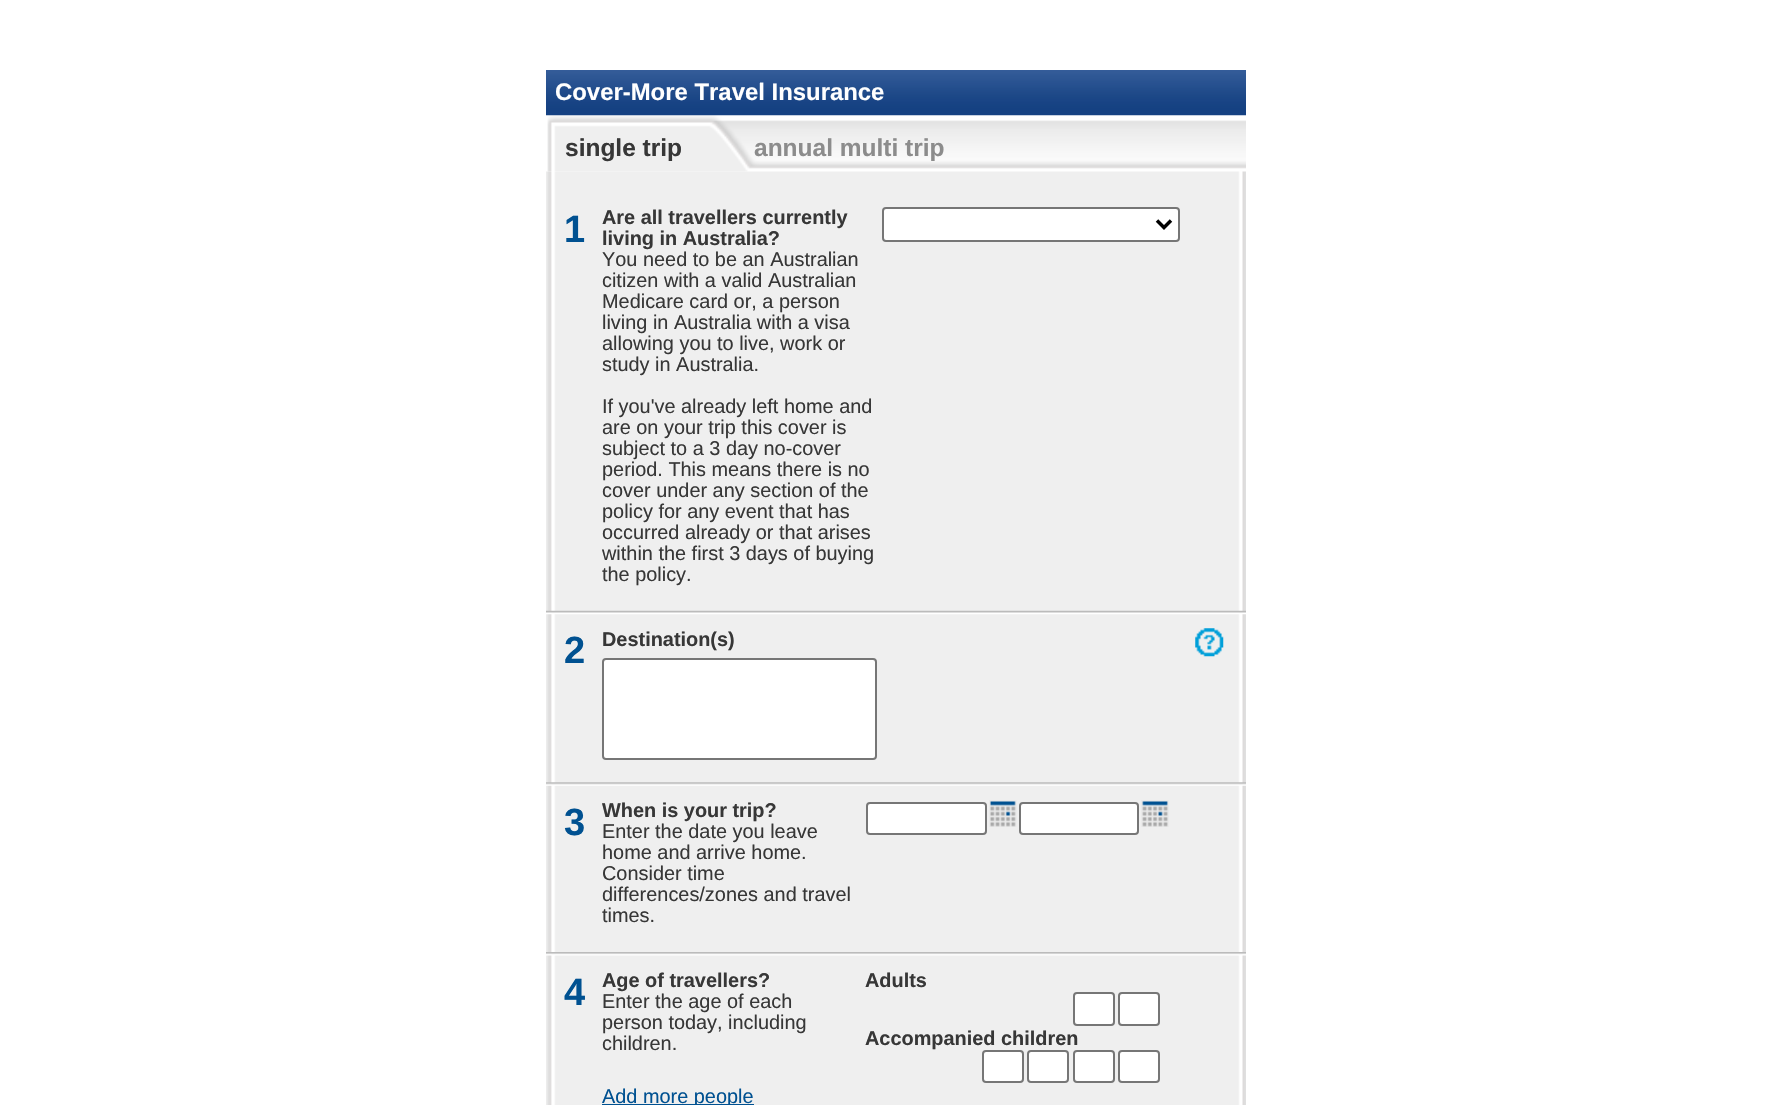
void draw(SkCanvas* c) {
SkPaint p;
p.setAntiAlias(true);
auto F=[&](const char* family, int weight, float size, bool italic = false){SkFontStyle style(weight, SkFontStyle::kNormal_Width,italic ? SkFontStyle::kItalic_Slant : SkFontStyle::kUpright_Slant);SkFont result(fontMgr->matchFamilyStyle(family, style), size);result.setSubpixel(true);return result;};
auto T=[&](const char* s, float x, float y, const SkFont& font){c->drawString(s, x, y, font, p);};
auto R=[&](float x, float y, float w, float h){c->drawRect(SkRect::MakeXYWH(x, y, w, h), p);};
auto I=[&](const char* path, float x, float y, float w, float h){auto image = SkImages::DeferredFromEncodedData(SkData::MakeFromFileName(path));c->drawImageRect(image, SkRect::MakeXYWH(x, y, w, h), SkSamplingOptions());};
auto P=[&](const char* data, bool evenOdd = false){SkPath result = *SkParsePath::FromSVGString(data);if (evenOdd) result.setFillType(SkPathFillType::kEvenOdd);return result;};
c->clear(0xffffffff);
I("1.png",546,70,700,46);
auto f1 = F("Liberation Sans",700,23.9);
p.setColor(0xffffffff);
T("Cover-More Travel Insurance",555,100,f1);
I("2.png",546,115,700,57);
auto f2 = F("Liberation Sans",700,24.5);
p.setColor(0xff373737);
T("single trip",565,156,f2);
p.setColor(0xff8c8c8c);
T("annual multi trip",754,156,f2);
I("3.png",546,171,700,934);
auto f3 = F("Liberation Sans",700,38);
p.setColor(0xff005191);
T("1",564,242,f3);
auto f4 = F("Liberation Sans",700,19.9);
p.setColor(0xff373737);
T("Are all travellers currently",602,224,f4);
T("living in Australia?",602,245,f4);
auto f5 = F("Liberation Sans",400,19.9);
T("You need to be an Australian",602,266,f5);
T("citizen with a valid Australian",602,287,f5);
T("Medicare card or, a person",602,308,f5);
T("living in Australia with a visa",602,329,f5);
T("allowing you to live, work or",602,350,f5);
T("study in Australia.",602,371,f5);
T("If you've already left home and",602,413,f5);
T("are on your trip this cover is",602,434,f5);
T("subject to a 3 day no-cover",602,455,f5);
T("period. This means there is no",602,476,f5);
T("cover under any section of the",602,497,f5);
T("policy for any event that has",602,518,f5);
T("occurred already or that arises",602,539,f5);
T("within the first 3 days of buying",602,560,f5);
T("the policy.",602,581,f5);
p.setColor(0xffffffff);
c->drawRoundRect(SkRect::MakeXYWH(883,208,296,33),3,3,p);
p.setStroke(true);
p.setStrokeWidth(2);
p.setColor(0xff767676);
c->drawRoundRect(SkRect::MakeXYWH(883,208,296,33),3,3,p);
p.setStrokeWidth(3.5);
p.setColor(0xff000000);
c->drawPath(P("M1157 220.5l7 7l7-7"),p);
I("4.png",546,610,700,5);
p.setStroke(false);
p.setColor(0xff005191);
T("2",564,663,f3);
p.setColor(0xff373737);
T("Destination(s)",602,646,f4);
I("5.png",1195,628,29,29);
p.setColor(0xffffffff);
c->drawRoundRect(SkRect::MakeXYWH(603,659,273,100),3,3,p);
p.setStroke(true);
p.setStrokeWidth(2);
p.setColor(0xff767676);
c->drawRoundRect(SkRect::MakeXYWH(603,659,273,100),3,3,p);
I("6.png",546,782,700,4);
p.setStroke(false);
p.setColor(0xff005191);
T("3",564,835,f3);
p.setColor(0xff373737);
T("When is your trip?",602,817,f4);
T("Enter the date you leave",602,838,f5);
T("home and arrive home.",602,859,f5);
T("Consider time",602,880,f5);
T("differences/zones and travel",602,901,f5);
T("times.",602,922,f5);
p.setColor(0xffffffff);
c->drawRoundRect(SkRect::MakeXYWH(867,803,119,31),3,3,p);
p.setStroke(true);
p.setColor(0xff767676);
c->drawRoundRect(SkRect::MakeXYWH(867,803,119,31),3,3,p);
I("7.png",989,800,28,27);
p.setStroke(false);
p.setColor(0xffffffff);
c->drawRoundRect(SkRect::MakeXYWH(1020,803,118,31),3,3,p);
p.setStroke(true);
p.setColor(0xff767676);
c->drawRoundRect(SkRect::MakeXYWH(1020,803,118,31),3,3,p);
I("8.png",1141,800,28,27);
I("9.png",546,952,700,4);
p.setStroke(false);
p.setColor(0xff005191);
T("4",564,1005,f3);
p.setColor(0xff373737);
T("Age of travellers?",602,987,f4);
T("Enter the age of each",602,1008,f5);
T("person today, including",602,1029,f5);
T("children.",602,1050,f5);
T("Adults",865,987,f4);
p.setColor(0xffffffff);
c->drawRoundRect(SkRect::MakeXYWH(1074,993,40,32),3,3,p);
p.setStroke(true);
p.setColor(0xff767676);
c->drawRoundRect(SkRect::MakeXYWH(1074,993,40,32),3,3,p);
p.setStroke(false);
p.setColor(0xffffffff);
c->drawRoundRect(SkRect::MakeXYWH(1119,993,40,32),3,3,p);
p.setStroke(true);
p.setColor(0xff767676);
c->drawRoundRect(SkRect::MakeXYWH(1119,993,40,32),3,3,p);
p.setStroke(false);
p.setColor(0xff373737);
T("Accompanied children",865,1045,f4);
p.setColor(0xffffffff);
c->drawRoundRect(SkRect::MakeXYWH(983,1051,40,31),3,3,p);
p.setStroke(true);
p.setColor(0xff767676);
c->drawRoundRect(SkRect::MakeXYWH(983,1051,40,31),3,3,p);
p.setStroke(false);
p.setColor(0xffffffff);
c->drawRoundRect(SkRect::MakeXYWH(1028,1051,40,31),3,3,p);
p.setStroke(true);
p.setColor(0xff767676);
c->drawRoundRect(SkRect::MakeXYWH(1028,1051,40,31),3,3,p);
p.setStroke(false);
p.setColor(0xffffffff);
c->drawRoundRect(SkRect::MakeXYWH(1074,1051,40,31),3,3,p);
p.setStroke(true);
p.setColor(0xff767676);
c->drawRoundRect(SkRect::MakeXYWH(1074,1051,40,31),3,3,p);
p.setStroke(false);
p.setColor(0xffffffff);
c->drawRoundRect(SkRect::MakeXYWH(1119,1051,40,31),3,3,p);
p.setStroke(true);
p.setColor(0xff767676);
c->drawRoundRect(SkRect::MakeXYWH(1119,1051,40,31),3,3,p);
p.setStroke(false);
p.setColor(0xff005191);
R(602,1104,152,1);
T("Add more people",602,1103,f5);
}
